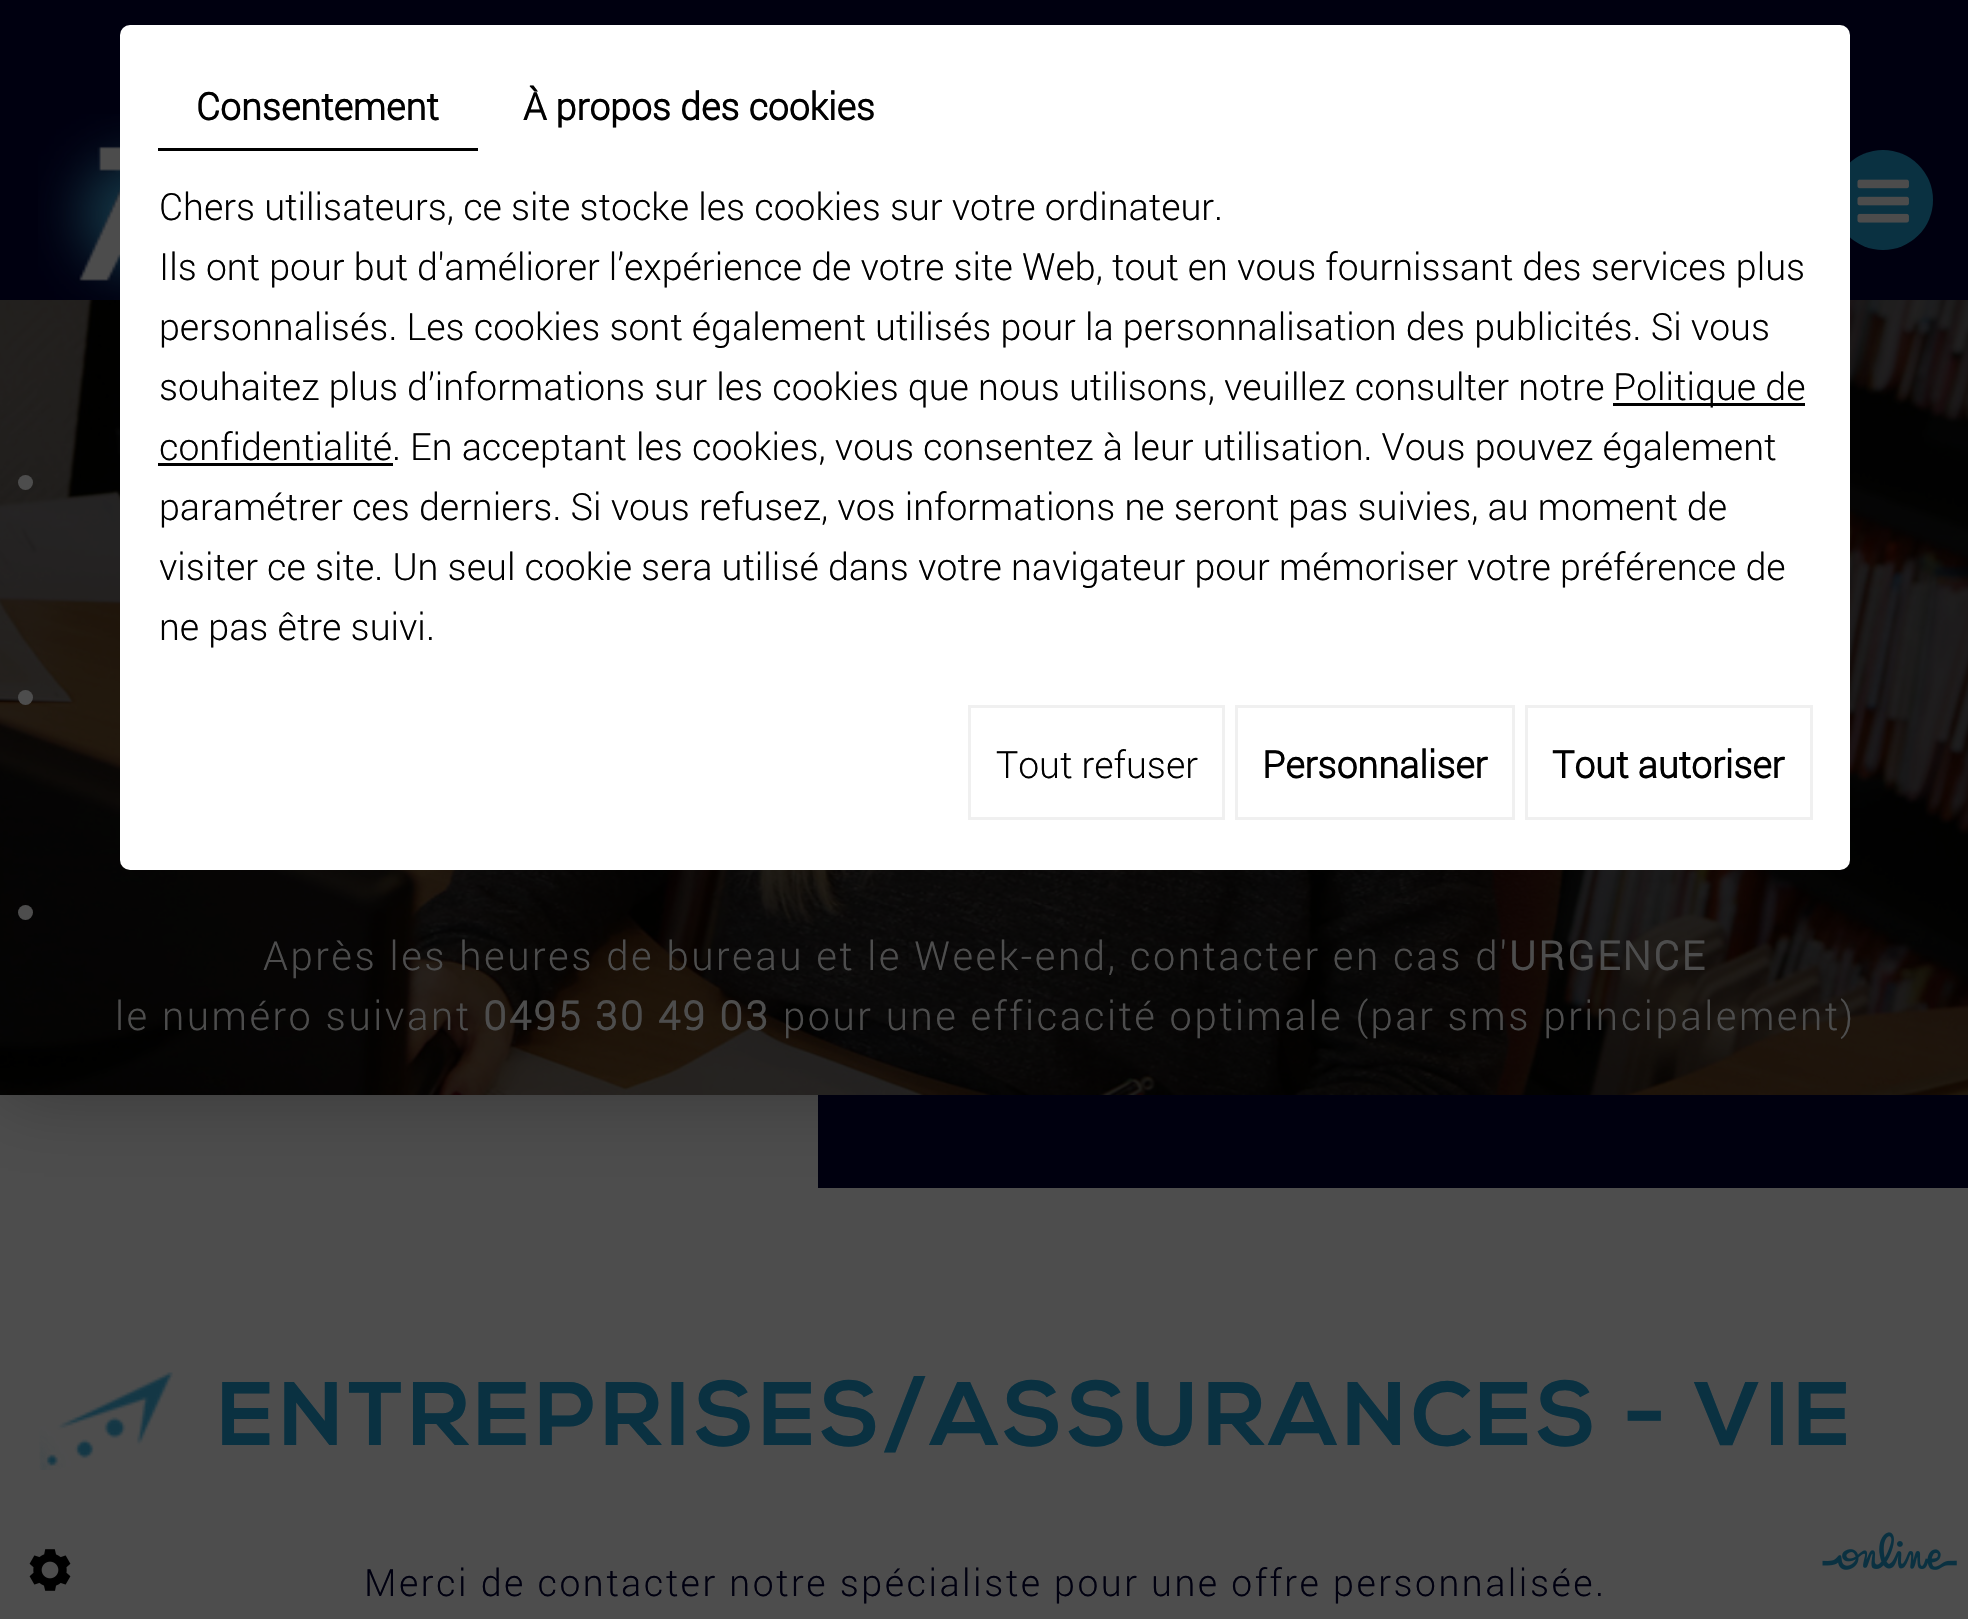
void draw(SkCanvas* c) {
SkPaint p;
p.setAntiAlias(true);
auto F=[&](const char* family, int weight, float size, bool italic = false){SkFontStyle style(weight, SkFontStyle::kNormal_Width,italic ? SkFontStyle::kItalic_Slant : SkFontStyle::kUpright_Slant);SkFont result(fontMgr->matchFamilyStyle(family, style), size);result.setSubpixel(true);return result;};
auto T=[&](const char* s, float x, float y, const SkFont& font){c->drawString(s, x, y, font, p);};
auto L=[&](const char* s, float x, float y, const SkFont& font, const SkPaint& ink, float letter, float word){std::vector<SkGlyphID> glyphs(font.countText(s, strlen(s), SkTextEncoding::kUTF8));std::vector<float> xs(glyphs.size());font.textToGlyphs(s, strlen(s), SkTextEncoding::kUTF8, glyphs);font.getXPos(glyphs, xs, x);float extra = 0;for (size_t i = 0; i < glyphs.size(); i++) {xs[i] += extra;extra += letter + word * (glyphs[i] == font.unicharToGlyph(' '));}c->drawTextBlob(SkTextBlob::MakeFromPosHGlyphs(glyphs, xs, y, font), 0, 0, ink);};
auto R=[&](float x, float y, float w, float h){c->drawRect(SkRect::MakeXYWH(x, y, w, h), p);};
auto Q=[&](float x, float y, float w, float h, float radius){c->drawRoundRect(SkRect::MakeXYWH(x, y, w, h), radius, radius, p);};
auto I=[&](const char* path, float x, float y, float w, float h){auto image = SkImages::DeferredFromEncodedData(SkData::MakeFromFileName(path));c->drawImageRect(image, SkRect::MakeXYWH(x, y, w, h), SkSamplingOptions());};
c->clear(0xff4d4d4d);
p.setColor(0x47000000);
p.setMaskFilter(SkMaskFilter::MakeBlur(kNormal_SkBlurStyle, 37.5));
c->drawRect(SkRect::MakeXYWH(0,0,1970,1095),p);
p.setMaskFilter(nullptr);
I("2.png",0,300,1968,795);
p.setColor(0xff000010);
R(0,0,1968,300);
p.setColor(0xff0a3141);
c->drawCircle(1883,200,50,p);
p.setColor(0xffffffff);
Q(120,25,1730,845,10);
p.setColor(0xff000000);
R(158,148,320,3);
auto f1 = F("Roboto",700,37.5);
T("Consentement",196,120,f1);
T("À propos des cookies",523,120,f1);
auto f2 = F("Roboto",300,37.5);
T("Chers utilisateurs, ce site stocke les cookies sur votre ordinateur.",159,220,f2);
T("Ils ont pour but d'améliorer l’expérience de votre site Web, tout en vous fournissant des services plus",159,280,f2);
T("personnalisés. Les cookies sont également utilisés pour la personnalisation des publicités. Si vous",159,340,f2);
T("souhaitez plus d’informations sur les cookies que nous utilisons, veuillez consulter notre",159,400,f2);
R(1613,403,192,3);
T("Politique de",1613,400,f2);
R(158,463,235,3);
T("confidentialité. En acceptant les cookies, vous consentez à leur utilisation. Vous pouvez également",159,460,f2);
T("paramétrer ces derniers. Si vous refusez, vos informations ne seront pas suivies, au moment de",159,520,f2);
T("visiter ce site. Un seul cookie sera utilisé dans votre navigateur pour mémoriser votre préférence de",159,580,f2);
T("ne pas être suivi.",159,640,f2);
p.setStroke(true);
p.setStrokeWidth(3);
p.setColor(0xfff0f0f0);
c->drawRect(SkRect::MakeXYWH(969.5,706.5,254,112),p);
p.setStroke(false);
p.setColor(0xff000000);
T("Tout refuser",996,778,f2);
p.setStroke(true);
p.setColor(0xfff0f0f0);
c->drawRect(SkRect::MakeXYWH(1236.5,706.5,277,112),p);
p.setStroke(false);
p.setColor(0xff000000);
T("Personnaliser",1262,778,f1);
p.setStroke(true);
p.setColor(0xfff0f0f0);
c->drawRect(SkRect::MakeXYWH(1526.5,706.5,285,112),p);
p.setStroke(false);
p.setColor(0xff000000);
T("Tout autoriser",1552,778,f1);
I("1.png",29,1549,42,42);
p.setColor(0xff4d4d4d);
c->drawCircle(25.5,482.5,7.5,p);
c->drawCircle(25.5,697.5,7.5,p);
c->drawCircle(25.5,912.5,7.5,p);
p.setColor(0xff00000f);
R(818,1095,1150,93);
I("3.png",38,114,82,186);
I("4.png",1857,179,52,44);
auto f3 = F("Roboto",300,40);
p.setColor(0xff4d4d4d);
L("Après les heures de bureau et le Week-end, contacter en cas d'",263,970,f3,p,2.5,0);
auto f4 = F("Roboto",700,40);
L("URGENCE",1509,970,f4,p,2.5,0);
L("le numéro suivant",115,1030,f3,p,2.5,0);
L("0495 30 49 03",483,1030,f4,p,2.5,0);
L("pour une efficacité optimale (par sms principalement)",783,1030,f3,p,2.5,0);
I("5.png",39,1372,134,98);
auto f5 = F("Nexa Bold",700,90);
p.setColor(0xff0a3141);
L("ENTREPRISES/ASSURANCES - VIE",218,1445,f5,p,5,0);
p.setColor(0xff000010);
L("Merci de contacter notre spécialiste pour une offre personnalisée.",364,1596,f2,p,2.5,0);
I("6.png",1822,1532,135,38);
}
